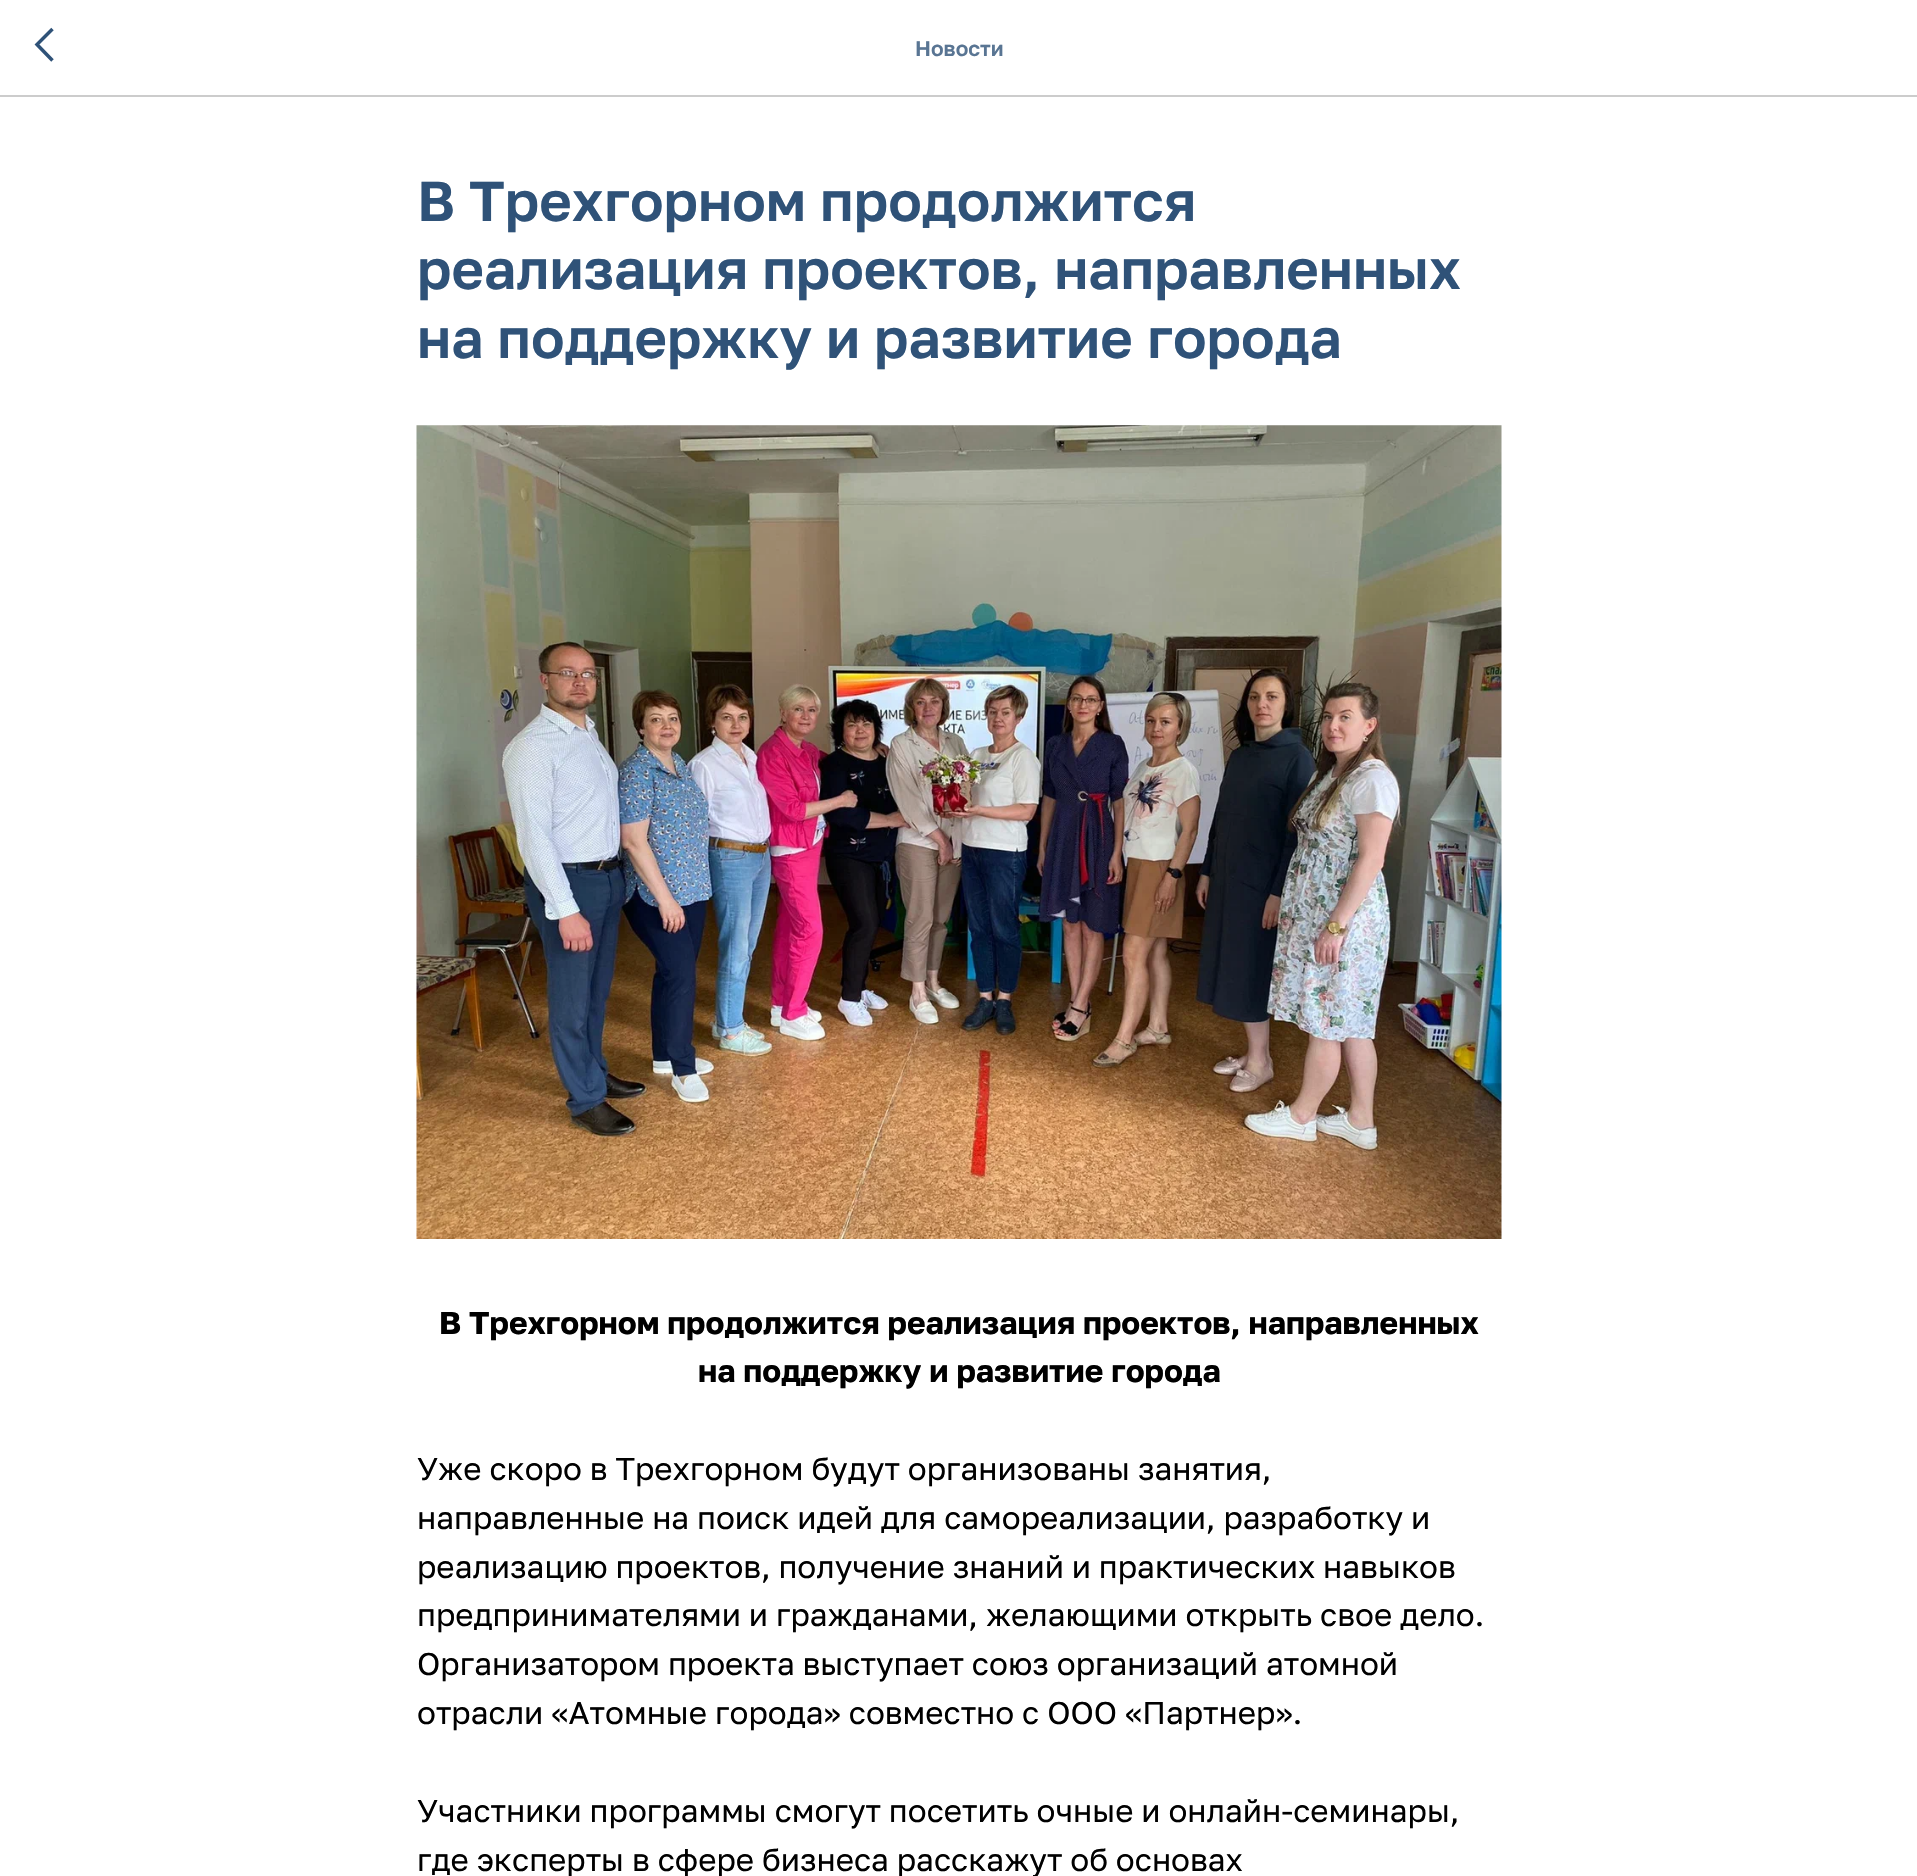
void draw(SkCanvas* c) {
SkPaint p;
p.setAntiAlias(true);
auto F=[&](const char* family, int weight, float size, bool italic = false){SkFontStyle style(weight, SkFontStyle::kNormal_Width,italic ? SkFontStyle::kItalic_Slant : SkFontStyle::kUpright_Slant);SkFont result(fontMgr->matchFamilyStyle(family, style), size);result.setSubpixel(true);return result;};
auto T=[&](const char* s, float x, float y, const SkFont& font){c->drawString(s, x, y, font, p);};
auto R=[&](float x, float y, float w, float h){c->drawRect(SkRect::MakeXYWH(x, y, w, h), p);};
auto I=[&](const char* path, float x, float y, float w, float h){auto image = SkImages::DeferredFromEncodedData(SkData::MakeFromFileName(path));c->drawImageRect(image, SkRect::MakeXYWH(x, y, w, h), SkSamplingOptions());};
auto P=[&](const char* data, bool evenOdd = false){SkPath result = *SkParsePath::FromSVGString(data);if (evenOdd) result.setFillType(SkPathFillType::kEvenOdd);return result;};
c->clear(0xffffffff);
p.setColor(0xffcccccc);
R(0,95,1917,2);
p.setStroke(true);
p.setStrokeWidth(3.5);
p.setColor(0xff2f5278);
c->drawPath(P("M52.5 60.5l-15.5-16l15.5-15.5"),p);
auto f1 = F("Golos Text",600,21);
p.setStroke(false);
p.setColor(0xff597593);
T("Новости",915,56,f1);
auto f2 = F("Golos Text",600,56);
p.setColor(0xff2f5278);
T("В Трехгорном продолжится",417,221,f2);
T("реализация проектов, направленных",417,289,f2);
T("на поддержку и развитие города",417,358,f2);
I("1.png",416,425,1086,814);
auto f3 = F("Golos Text",700,31.5);
p.setColor(0xff000000);
T("В Трехгорном продолжится реализация проектов, направленных",439,1334,f3);
T("на поддержку и развитие города",698,1382,f3);
auto f4 = F("Golos Text",400,31.5);
T("Уже скоро в Трехгорном будут организованы занятия,",417,1480,f4);
T("направленные на поиск идей для самореализации, разработку и",417,1529,f4);
T("реализацию проектов, получение знаний и практических навыков",417,1578,f4);
T("предпринимателями и гражданами, желающими открыть свое дело.",417,1626,f4);
T("Организатором проекта выступает союз организаций атомной",417,1675,f4);
T("отрасли «Атомные города» совместно с ООО «Партнер».",417,1724,f4);
T("Участники программы смогут посетить очные и онлайн-семинары,",417,1822,f4);
T("где эксперты в сфере бизнеса расскажут об основах",417,1871,f4);
}
